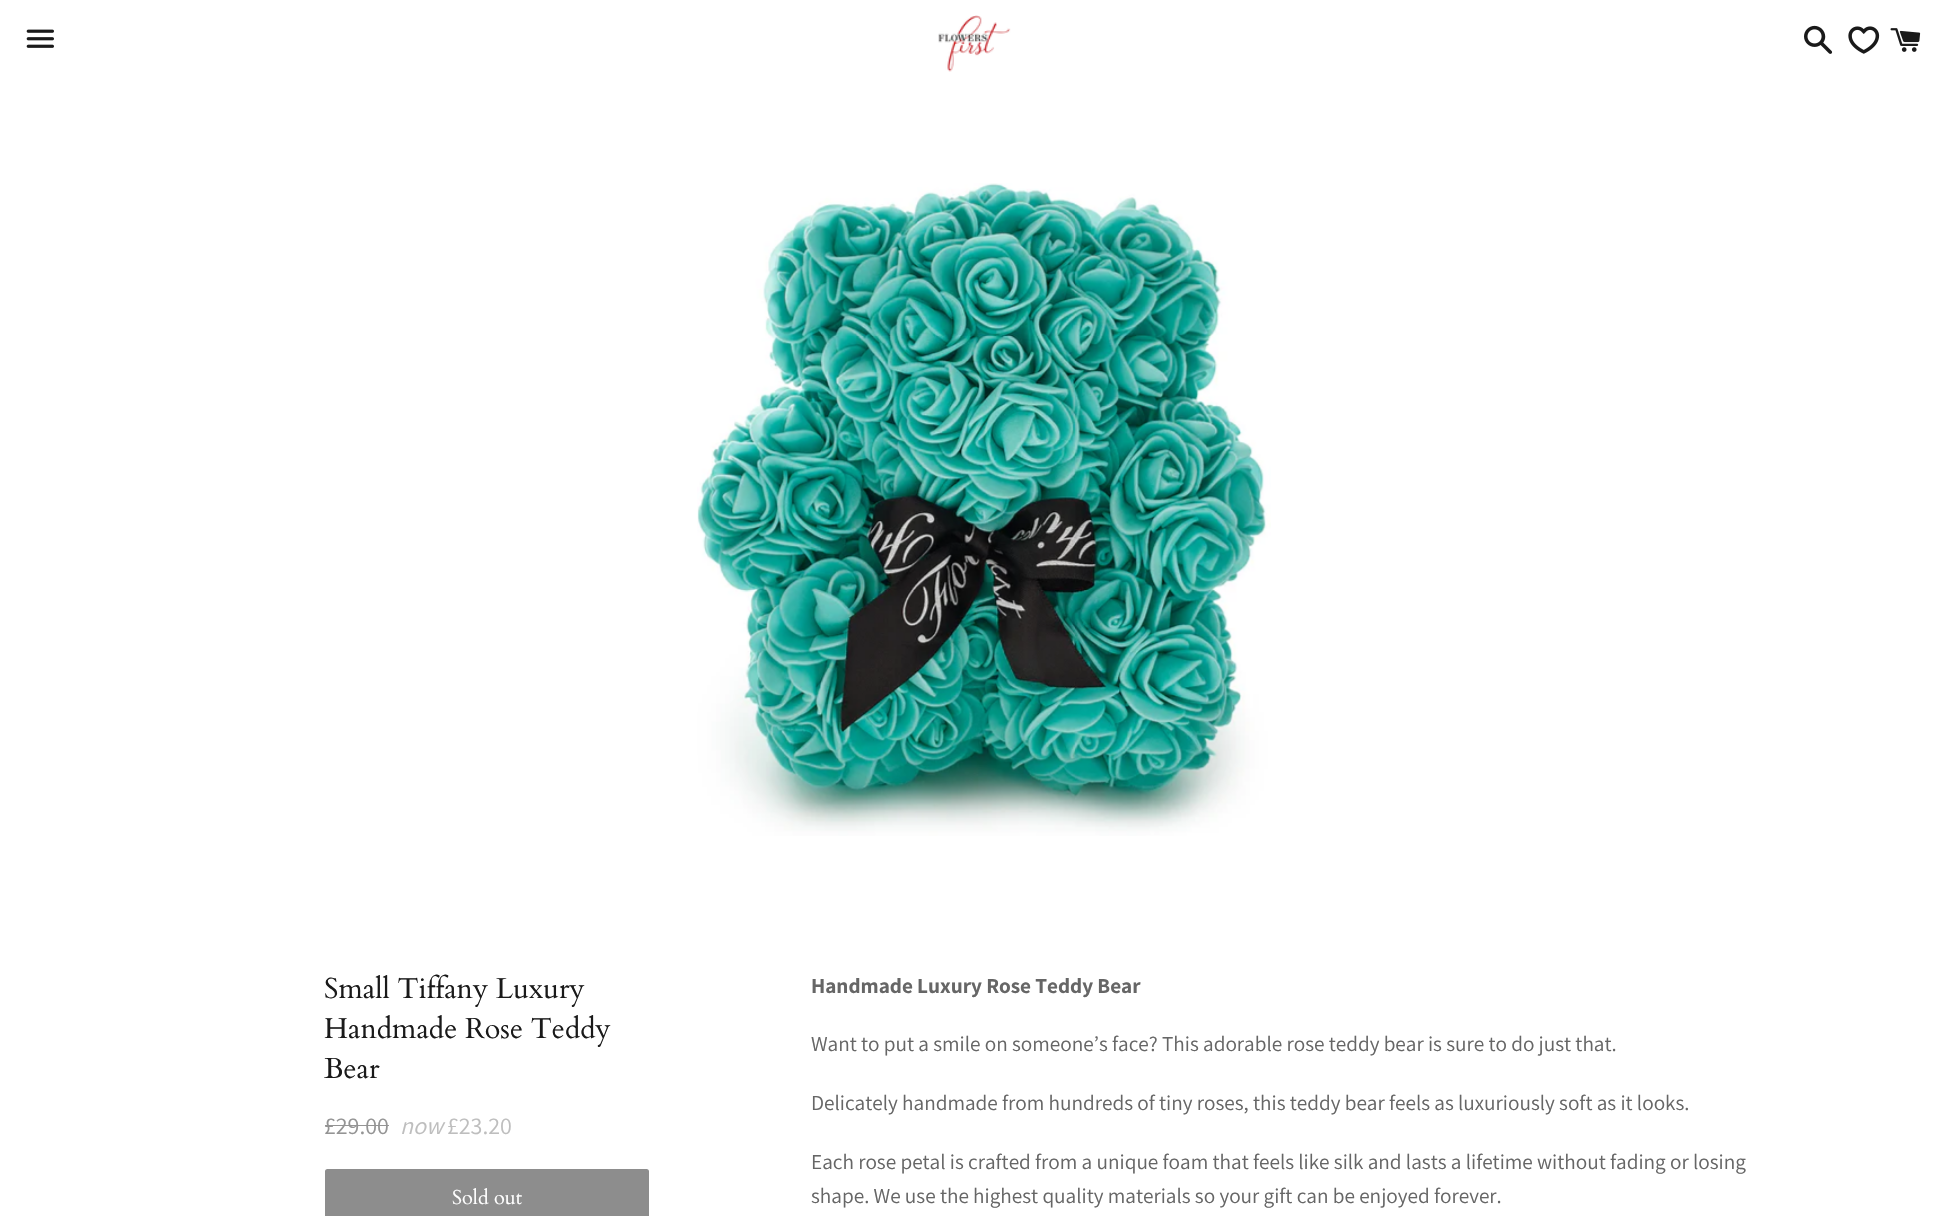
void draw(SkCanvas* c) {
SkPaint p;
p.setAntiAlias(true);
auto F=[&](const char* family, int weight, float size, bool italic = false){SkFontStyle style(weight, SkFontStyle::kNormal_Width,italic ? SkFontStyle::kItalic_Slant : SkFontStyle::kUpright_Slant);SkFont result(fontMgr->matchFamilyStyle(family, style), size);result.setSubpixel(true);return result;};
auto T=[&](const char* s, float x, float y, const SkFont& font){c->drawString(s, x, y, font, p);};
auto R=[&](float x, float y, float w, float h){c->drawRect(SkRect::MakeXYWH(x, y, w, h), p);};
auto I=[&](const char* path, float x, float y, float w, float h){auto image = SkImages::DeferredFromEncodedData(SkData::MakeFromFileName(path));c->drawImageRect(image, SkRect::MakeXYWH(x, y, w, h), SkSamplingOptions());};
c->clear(0xffffffff);
I("1.png",26,29,28,19);
I("2.png",938,15,73,57);
I("3.png",1804,25,29,29);
I("4.png",1848,26,32,28);
I("5.png",1890,28,31,24);
I("6.png",697,183,574,653);
auto f1 = F("Cardo",400,28.75);
p.setColor(0xff1a1a1a);
T("Small Tiffany Luxury",324,998,f1);
T("Handmade Rose Teddy",324,1038,f1);
T("Bear",324,1078,f1);
auto f2 = F("Assistant",400,24);
p.setColor(0xff949494);
T("£29.00",324,1134,f2);
R(325,1125,64,1);
auto f3 = F("Assistant",400,24,true);
p.setColor(0xffbebebe);
T("now",400,1134,f3);
T("£23.20",447,1134,f2);
p.setColor(0xff8d8d8d);
c->drawRoundRect(SkRect::MakeXYWH(326.5,1170.5,321,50),1,1,p);
p.setStroke(true);
p.setStrokeWidth(3);
c->drawRoundRect(SkRect::MakeXYWH(326.5,1170.5,321,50),1,1,p);
auto f4 = F("Cardo",400,20);
p.setStroke(false);
p.setColor(0xffffffff);
T("Sold out",452,1204,f4);
auto f5 = F("Assistant",700,21.25);
p.setColor(0xff666666);
T("Handmade Luxury Rose Teddy Bear",811,993,f5);
auto f6 = F("Assistant",400,21.25);
T("Want to put a smile on someone’s face? This adorable rose teddy bear is sure to do just that.",811,1051,f6);
T("Delicately handmade from hundreds of tiny roses, this teddy bear feels as luxuriously soft as it looks.",811,1110,f6);
T("Each rose petal is crafted from a unique foam that feels like silk and lasts a lifetime without fading or losing",811,1169,f6);
T("shape. We use the highest quality materials so your gift can be enjoyed forever.",811,1203,f6);
}
